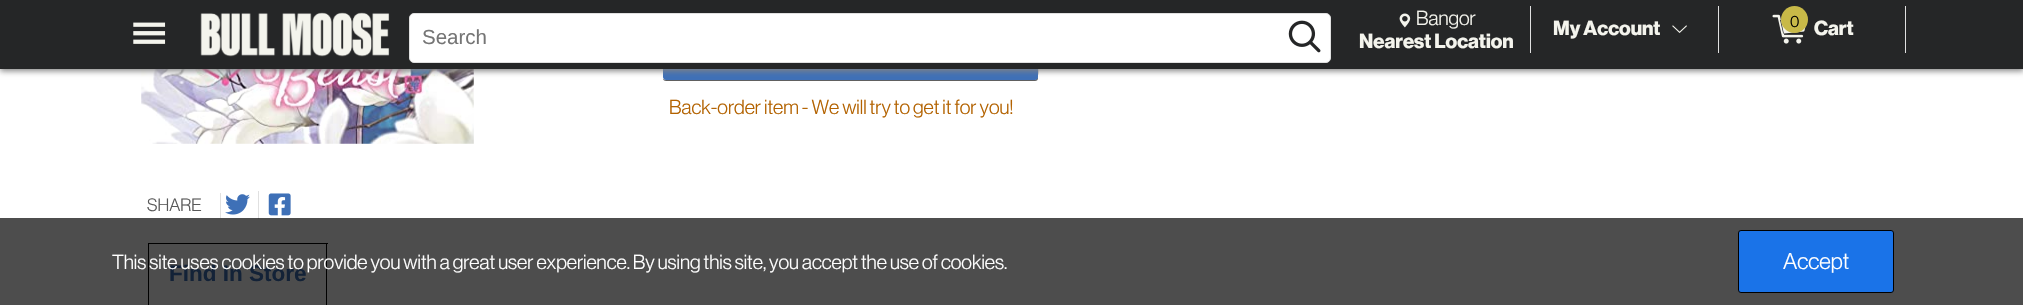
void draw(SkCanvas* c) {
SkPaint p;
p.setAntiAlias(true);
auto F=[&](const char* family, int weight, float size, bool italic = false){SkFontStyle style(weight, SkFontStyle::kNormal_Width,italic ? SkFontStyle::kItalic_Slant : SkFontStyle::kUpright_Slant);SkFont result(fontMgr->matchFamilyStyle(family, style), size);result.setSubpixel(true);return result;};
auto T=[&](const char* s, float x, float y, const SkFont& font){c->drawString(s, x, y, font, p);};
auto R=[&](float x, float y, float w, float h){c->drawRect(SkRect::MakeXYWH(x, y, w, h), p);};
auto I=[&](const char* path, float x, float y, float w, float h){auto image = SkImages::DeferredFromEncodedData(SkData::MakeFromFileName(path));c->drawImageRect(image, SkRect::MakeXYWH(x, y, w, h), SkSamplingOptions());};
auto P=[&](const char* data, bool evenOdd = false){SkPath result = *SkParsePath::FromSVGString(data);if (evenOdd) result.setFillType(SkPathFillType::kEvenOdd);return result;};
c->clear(0xffffffff);
p.setColor(0xff4d4d4d);
R(0,218,2023,87);
I("7.png",141,69,333,75);
p.setColor(0xff606060);
c->drawPath(P("M663 79c0 1 2 2 3 2h369c2 0 3-1 3-3v-56l-1-2l1 48c0 0 2 12-4 12h-368z"),p);
p.setColor(0xff3e70b7);
c->drawRoundRect(SkRect::MakeXYWH(663.5,18.5,374,61),2.5,2.5,p);
p.setStroke(true);
p.setStrokeWidth(1);
c->drawRoundRect(SkRect::MakeXYWH(663.5,18.5,374,61),2.5,2.5,p);
p.setStroke(false);
p.setColor(0xff828282);
p.setMaskFilter(SkMaskFilter::MakeBlur(kNormal_SkBlurStyle, 3));
c->drawRect(SkRect::MakeXYWH(0,3,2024,68),p);
p.setMaskFilter(nullptr);
p.setColor(0xff252627);
R(0,0,2023,69);
I("1.png",133,22,33,22);
I("2.png",200,12,190,45);
p.setColor(0xffffffff);
c->drawRoundRect(SkRect::MakeXYWH(409.5,13.5,921,49),4.5,4.5,p);
p.setStroke(true);
p.setColor(0xffe0e0e0);
c->drawRoundRect(SkRect::MakeXYWH(409.5,13.5,921,49),4.5,4.5,p);
auto f1 = F("Liberation Sans",400,20.5);
p.setStroke(false);
p.setColor(0xff757575);
T("Search",422,44,f1);
I("3.png",1288,20,33,33);
p.setColor(0xffe0e0e0);
R(1530,6,1,47);
I("4.png",1399,13,12,15);
auto f2 = F("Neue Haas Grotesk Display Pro",400,20);
p.setColor(0xfff4f4ed);
T("Bangor",1416,25,f2);
auto f3 = F("Neue Haas Grotesk Display Pro",700,20);
T("Nearest Location",1359,48,f3);
p.setColor(0xffe0e0e0);
R(1718,6,1,47);
p.setColor(0xfff4f4ed);
T("My Account",1553,35,f3);
I("5.png",1672,25,15,8);
p.setColor(0xffe0e0e0);
R(1905,6,1,47);
I("6.png",1772,14,34,30);
p.setColor(0xffc8b948);
c->drawCircle(1794.5,19.5,13.5,p);
auto f4 = F("Neue Haas Grotesk Display Pro",400,16);
p.setColor(0xff000000);
T("0",1790,27,f4);
p.setColor(0xfff4f4ed);
T("Cart",1814,35,f3);
p.setColor(0xffb36200);
T("Back-order item - We will try to get it for you!",669,114,f2);
auto f5 = F("Neue Haas Grotesk Display Pro",400,17.5);
p.setColor(0xff595959);
T("SHARE",147,211,f5);
p.setColor(0xffe0e0e0);
R(220,193,1,25);
I("8.png",225,194,25,21);
R(258,191,1,28);
p.setColor(0xff434343);
R(258,218,1,1);
I("9.png",268,193,23,23);
p.setColor(0xff000000);
R(148,243,180,1);
R(326,243,1,62);
R(148,243,1,62);
auto f6 = F("Liberation Sans",700,22.5);
p.setColor(0xff132237);
T("Find In Store",169,281,f6);
p.setColor(0xffffffff);
T("This site uses cookies to provide you with a great user experience. By using this site, you accept the use of cookies.",112,269,f2);
p.setColor(0xff1a73e8);
c->drawRoundRect(SkRect::MakeXYWH(1738.5,230.5,155,62),2.5,2.5,p);
p.setStroke(true);
p.setColor(0xff000000);
c->drawRoundRect(SkRect::MakeXYWH(1738.5,230.5,155,62),2.5,2.5,p);
auto f7 = F("Neue Haas Grotesk Display Pro",400,22.5);
p.setStroke(false);
p.setColor(0xffffffff);
T("Accept",1783,269,f7);
}
